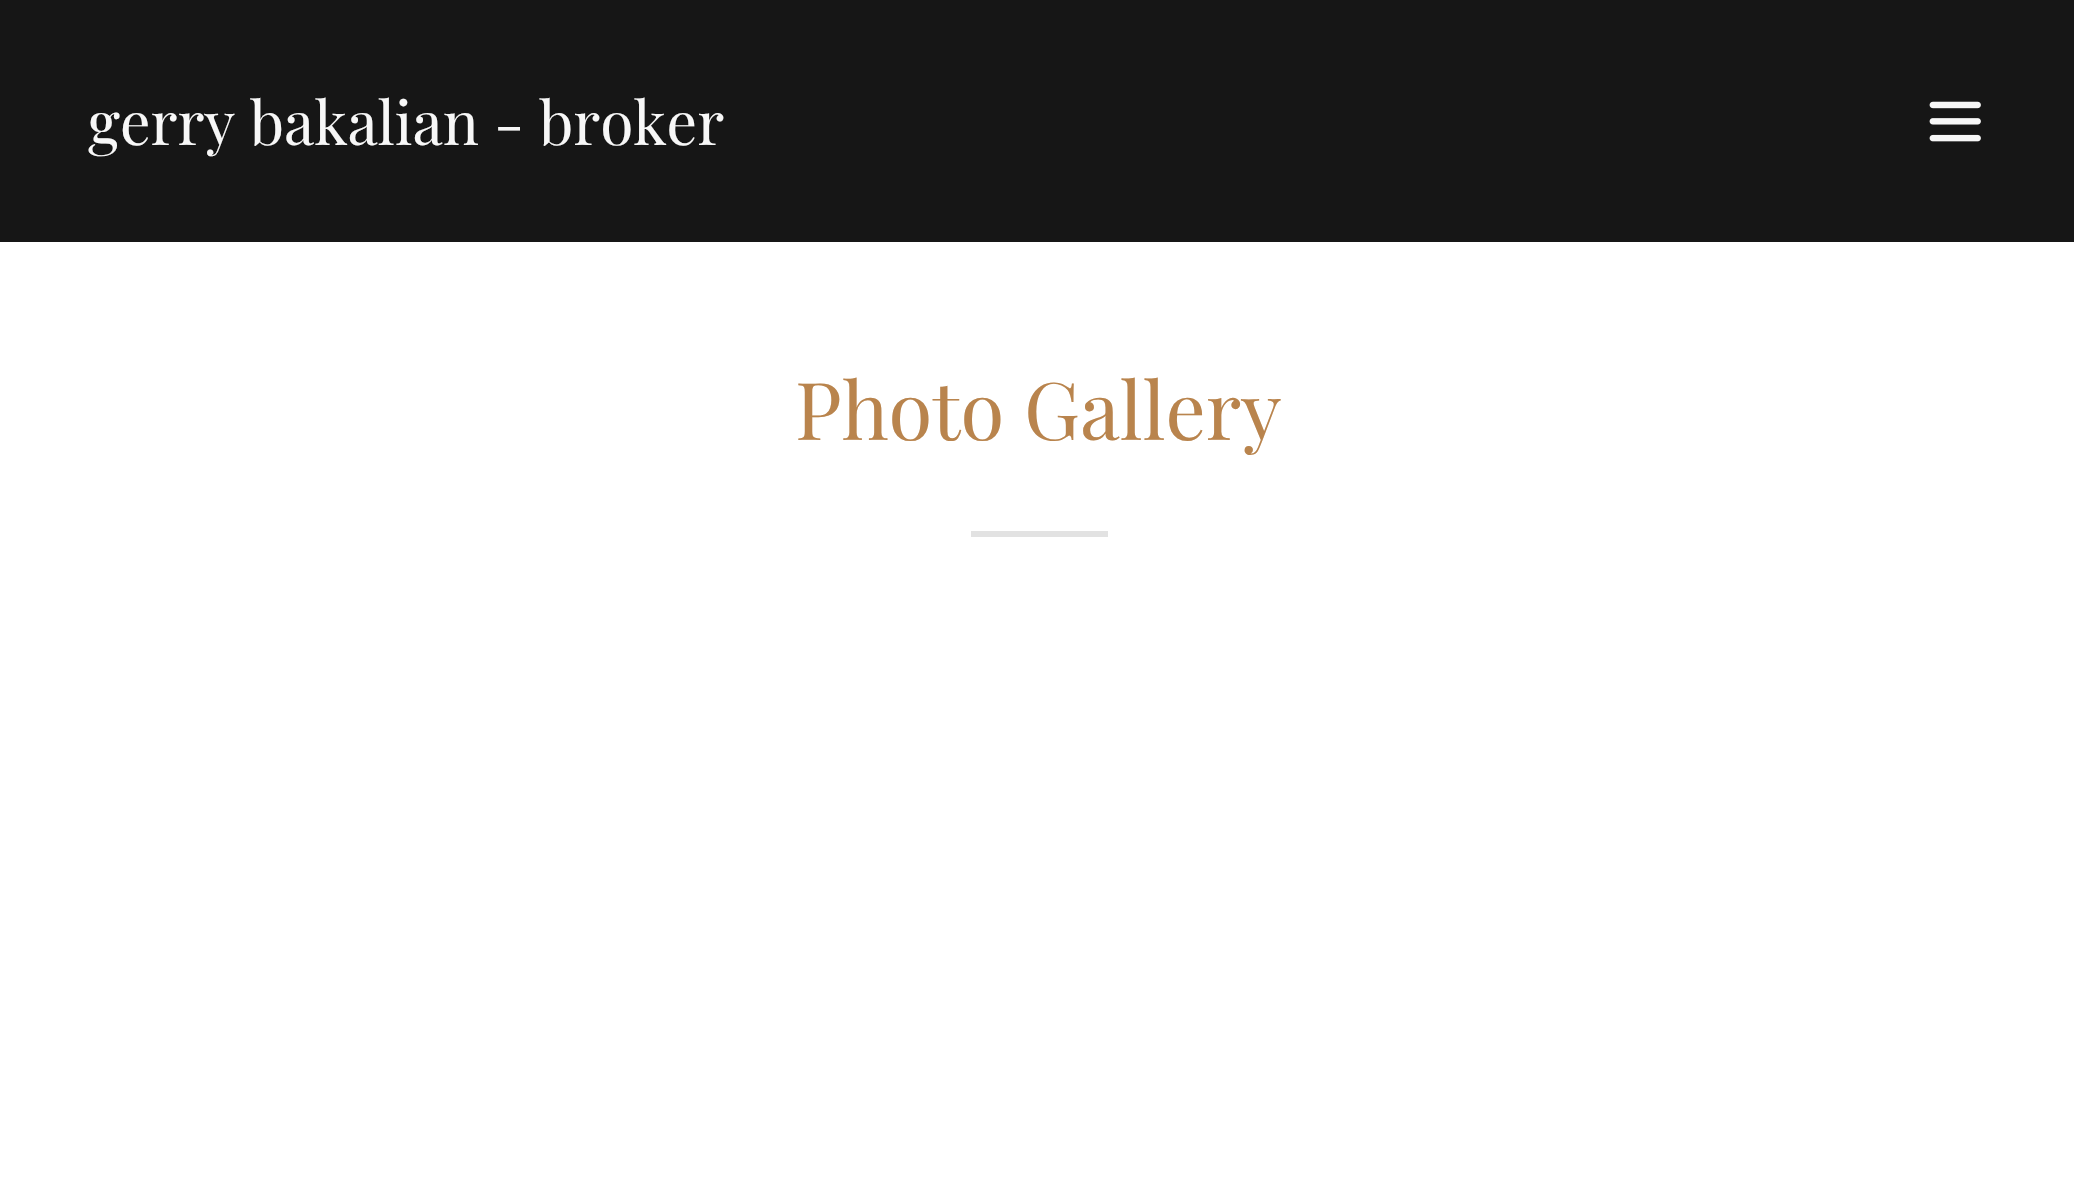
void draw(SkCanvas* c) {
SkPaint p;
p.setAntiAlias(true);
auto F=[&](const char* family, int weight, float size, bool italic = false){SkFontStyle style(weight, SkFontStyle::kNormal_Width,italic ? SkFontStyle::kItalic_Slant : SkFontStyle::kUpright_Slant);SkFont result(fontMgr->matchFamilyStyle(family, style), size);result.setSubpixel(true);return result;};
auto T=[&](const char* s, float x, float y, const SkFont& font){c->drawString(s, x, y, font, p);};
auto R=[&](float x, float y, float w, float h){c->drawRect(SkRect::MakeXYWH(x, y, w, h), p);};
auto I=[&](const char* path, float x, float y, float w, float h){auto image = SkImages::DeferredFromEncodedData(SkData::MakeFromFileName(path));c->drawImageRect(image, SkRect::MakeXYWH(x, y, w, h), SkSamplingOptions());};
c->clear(0xff161616);
auto f1 = F("Playfair Display",400,60.5);
p.setColor(0xfff7f7f7);
T("gerry bakalian - broker",88,145,f1);
I("1.png",1929,101,52,41);
p.setColor(0xffffffff);
R(0,242,2074,944);
auto f2 = F("Playfair Display",400,79.75);
p.setColor(0xffb9844d);
T("Photo Gallery",795,440,f2);
p.setColor(0xffe2e2e2);
R(971,531,137,6);
}
